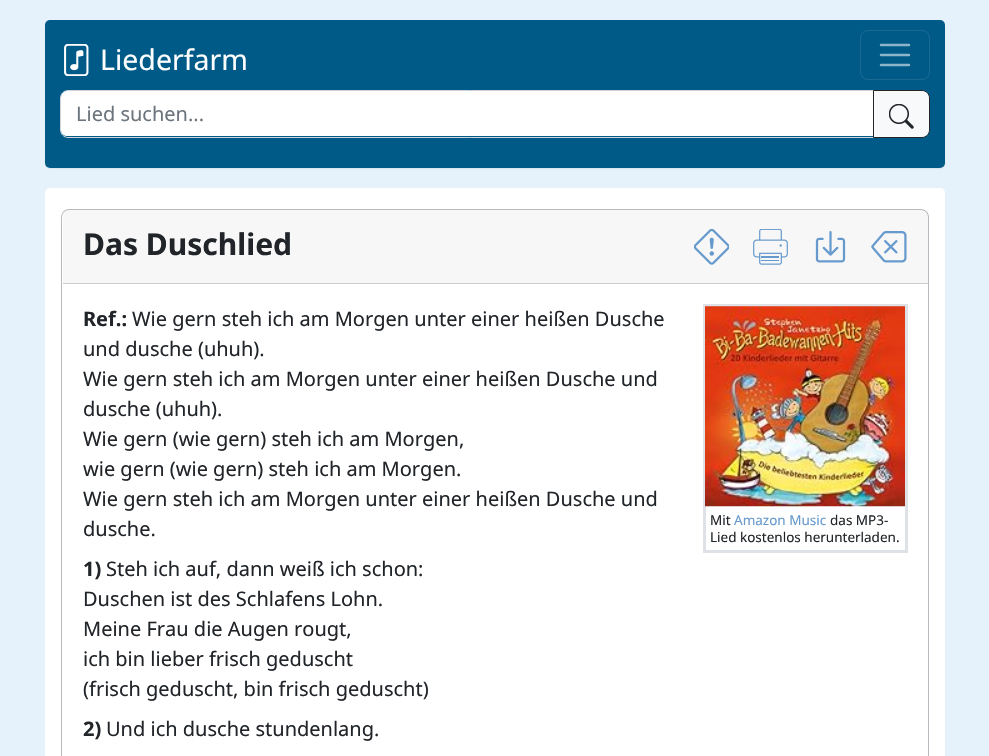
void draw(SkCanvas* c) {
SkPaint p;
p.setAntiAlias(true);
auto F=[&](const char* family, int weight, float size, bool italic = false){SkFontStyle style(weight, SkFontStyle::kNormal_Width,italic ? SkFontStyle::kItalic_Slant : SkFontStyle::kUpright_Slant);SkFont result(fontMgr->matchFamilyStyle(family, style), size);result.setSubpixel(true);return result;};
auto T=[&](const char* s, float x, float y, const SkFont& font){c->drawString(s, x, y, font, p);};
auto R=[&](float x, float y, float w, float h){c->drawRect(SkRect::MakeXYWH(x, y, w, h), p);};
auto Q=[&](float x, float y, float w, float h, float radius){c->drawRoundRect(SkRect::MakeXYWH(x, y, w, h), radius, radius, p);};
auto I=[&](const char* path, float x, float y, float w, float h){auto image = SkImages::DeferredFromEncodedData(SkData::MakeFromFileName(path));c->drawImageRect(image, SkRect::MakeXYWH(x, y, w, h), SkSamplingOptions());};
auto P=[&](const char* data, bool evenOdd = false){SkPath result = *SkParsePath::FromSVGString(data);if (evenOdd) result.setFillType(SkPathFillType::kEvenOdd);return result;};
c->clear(0xffe5f2fb);
p.setColor(0x0d000000);
p.setMaskFilter(SkMaskFilter::MakeBlur(kNormal_SkBlurStyle, .5));
c->drawRoundRect(SkRect::MakeXYWH(45,21,900,148),5,5,p);
p.setMaskFilter(nullptr);
p.setColor(0xff005a88);
Q(45,20,900,148,5);
I("1.png",64,44,25,32);
auto f1 = F("Noto Sans",400,28.5);
p.setColor(0xffffffff);
T("Liederfarm",100,70,f1);
p.setStroke(true);
p.setStrokeWidth(1);
p.setColor(0xff1a6b94);
c->drawRoundRect(SkRect::MakeXYWH(860.5,30.5,69,49),7.5,7.5,p);
p.setStrokeWidth(2.5);
p.setStrokeCap(SkPaint::kRound_Cap);
p.setColor(0xff8cb5c9);
c->drawPath(P("M881 45h28m-28 10h28m-28 10h28"),p);
p.setStroke(false);
p.setColor(0xffffffff);
c->drawPath(P("M67 91h806v45h-806c-3.5 0-6-2.5-6-6v-33c0-3.5 2.5-6 6-6z"),p);
p.setStroke(true);
p.setStrokeWidth(1);
p.setStrokeCap(SkPaint::kButt_Cap);
p.setColor(0xffced4da);
c->drawPath(P("M68 90.5h805.5v47h-805.5c-4 0-7.5-3.5-7.5-7.5v-32c0-4 3.5-7.5 7.5-7.5z"),p);
auto f2 = F("Noto Sans",400,20);
p.setStroke(false);
p.setColor(0xff6c757d);
T("Lied suchen...",76,121,f2);
p.setColor(0xfff8f9fa);
c->drawPath(P("M873.5 90.5h48.5c4 0 7.5 3.5 7.5 7.5v32c0 4-3.5 7.5-7.5 7.5h-48.5z"),p);
p.setStroke(true);
p.setColor(0xff212529);
c->drawPath(P("M873.5 90.5h48.5c4 0 7.5 3.5 7.5 7.5v32c0 4-3.5 7.5-7.5 7.5h-48.5z"),p);
I("2.png",889,104,25,25);
p.setStroke(false);
p.setColor(0xffffffff);
Q(45,188,900,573,5);
p.setStroke(true);
p.setColor(0xffb6babe);
c->drawRoundRect(SkRect::MakeXYWH(61.5,209.5,867,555),7.5,7.5,p);
p.setStroke(false);
p.setColor(0x08000000);
R(63,210,865,73);
p.setColor(0xffcccccc);
R(63,283,865,1);
auto f3 = F("Noto Sans",700,30);
p.setColor(0xff212529);
T("Das Duschlied",83,255,f3);
I("3.png",694,229,35,36);
I("4.png",753,229,35,36);
I("5.png",815,231,31,32);
I("6.png",871,231,36,32);
auto f4 = F("Noto Sans",700,20);
T("Ref.:",83,326,f4);
T("Wie gern steh ich am Morgen unter einer heißen Dusche",132,326,f2);
T("und dusche (uhuh).",83,356,f2);
T("Wie gern steh ich am Morgen unter einer heißen Dusche und",83,386,f2);
T("dusche (uhuh).",83,416,f2);
T("Wie gern (wie gern) steh ich am Morgen,",83,446,f2);
T("wie gern (wie gern) steh ich am Morgen.",83,476,f2);
T("Wie gern steh ich am Morgen unter einer heißen Dusche und",83,506,f2);
T("dusche.",83,536,f2);
T("1)",83,576,f4);
T("Steh ich auf, dann weiß ich schon:",106,576,f2);
T("Duschen ist des Schlafens Lohn.",83,606,f2);
T("Meine Frau die Augen rougt,",83,636,f2);
T("ich bin lieber frisch geduscht",83,666,f2);
T("(frisch geduscht, bin frisch geduscht)",83,696,f2);
T("2)",83,736,f4);
T("Und ich dusche stundenlang.",106,736,f2);
p.setStroke(true);
p.setStrokeWidth(3);
p.setColor(0xffdee2e6);
c->drawRect(SkRect::MakeXYWH(704.5,305.5,202,246),p);
I("7.png",705,306,200,201);
auto f5 = F("Noto Sans",400,13.5);
p.setStroke(false);
p.setColor(0xff212529);
T("Mit",710,525,f5);
p.setColor(0xff6699cc);
T("Amazon Music",734,525,f5);
p.setColor(0xff212529);
T("das MP3-",830,525,f5);
T("Lied kostenlos herunterladen.",710,542,f5);
}
